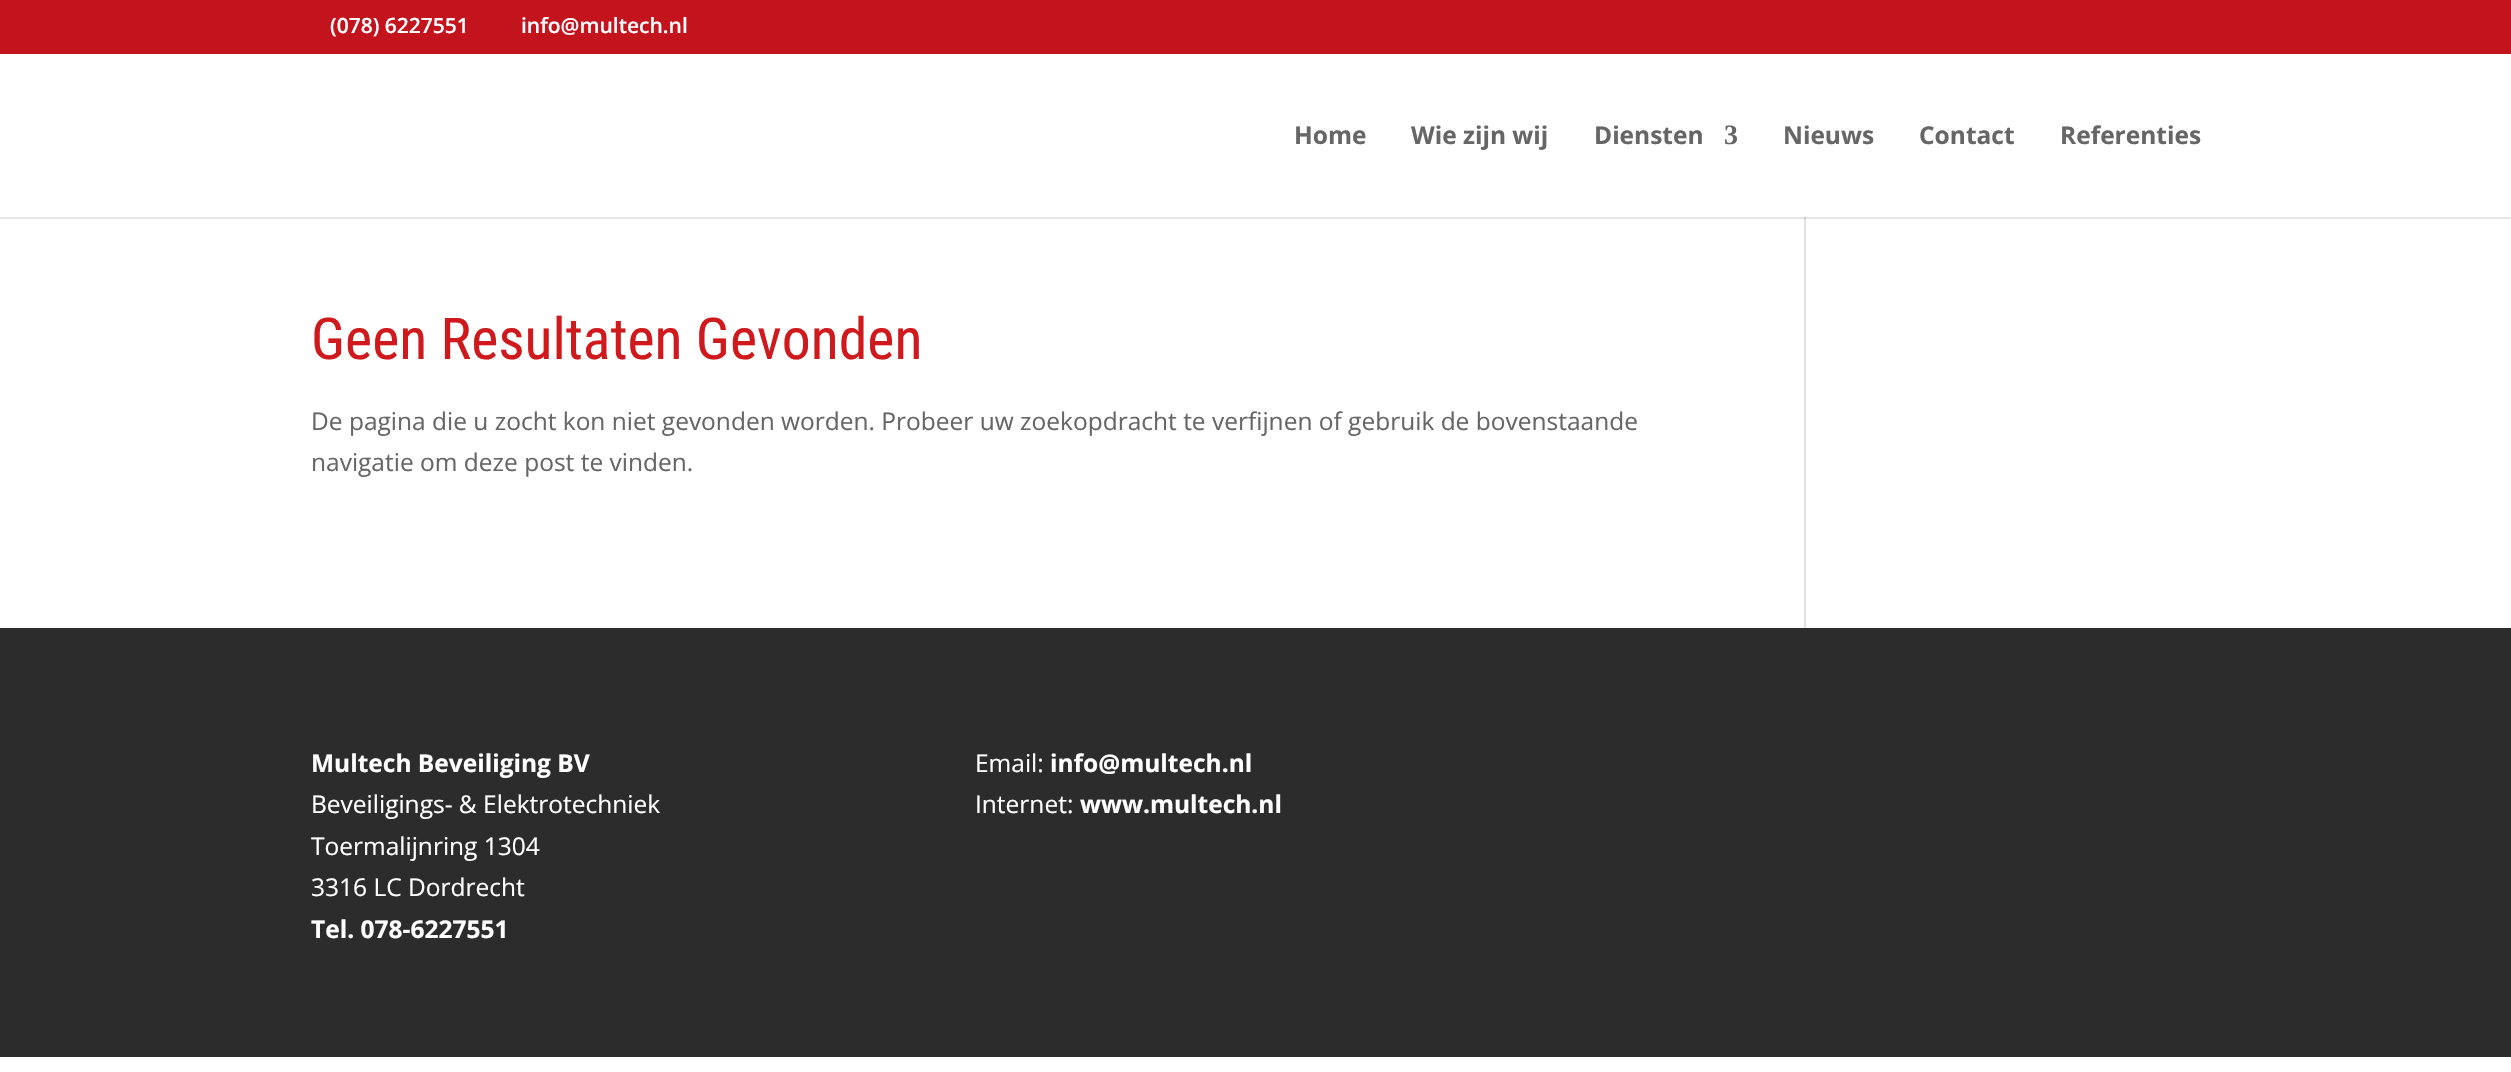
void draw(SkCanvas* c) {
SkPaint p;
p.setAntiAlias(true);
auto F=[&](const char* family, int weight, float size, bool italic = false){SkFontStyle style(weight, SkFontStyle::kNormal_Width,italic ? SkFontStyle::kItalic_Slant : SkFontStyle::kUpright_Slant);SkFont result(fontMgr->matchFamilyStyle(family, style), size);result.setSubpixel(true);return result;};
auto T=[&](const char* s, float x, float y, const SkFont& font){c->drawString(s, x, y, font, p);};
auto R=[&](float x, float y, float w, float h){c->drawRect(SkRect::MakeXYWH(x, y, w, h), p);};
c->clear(0xffffffff);
p.setColor(0xffe6e6e6);
R(0,217,2511,2);
p.setColor(0xffc3141e);
R(0,0,2511,54);
auto f1 = F("Open Sans",600,21);
p.setColor(0xffffffff);
T("(078) 6227551",330,33,f1);
T("info@multech.nl",521,33,f1);
auto f2 = F("Open Sans",700,24.5);
p.setColor(0xff666666);
T("Home",1294,144,f2);
T("Wie zijn wij",1411,144,f2);
T("Diensten",1594,144,f2);
auto f3 = F("Liberation Serif",700,28);
T("3",1724,144,f3);
T("Nieuws",1783,144,f2);
T("Contact",1919,144,f2);
T("Referenties",2060,144,f2);
auto f4 = F("Roboto Condensed",400,57.75);
p.setColor(0xffcf191c);
T("Geen Resultaten Gevonden",311,359,f4);
auto f5 = F("Open Sans",400,24.5);
p.setColor(0xff666666);
T("De pagina die u zocht kon niet gevonden worden. Probeer uw zoekopdracht te verfijnen of gebruik de bovenstaande",311,430,f5);
T("navigatie om deze post te vinden.",311,471,f5);
p.setColor(0xffe2e2e2);
R(1804,219,2,409);
p.setColor(0xffcbcbcb);
R(1804,217,2,2);
p.setColor(0xff2c2c2c);
R(0,628,2511,429);
p.setColor(0xffffffff);
T("Multech Beveiliging BV",311,772,f2);
T("Beveiligings- & Elektrotechniek",311,813,f5);
T("Toermalijnring 1304",311,855,f5);
T("3316 LC Dordrecht",311,896,f5);
T("Tel. 078-6227551",311,938,f2);
T("Email:",975,772,f5);
T("info@multech.nl",1050,772,f2);
T("Internet:",975,813,f5);
T("www.multech.nl",1080,813,f2);
}
